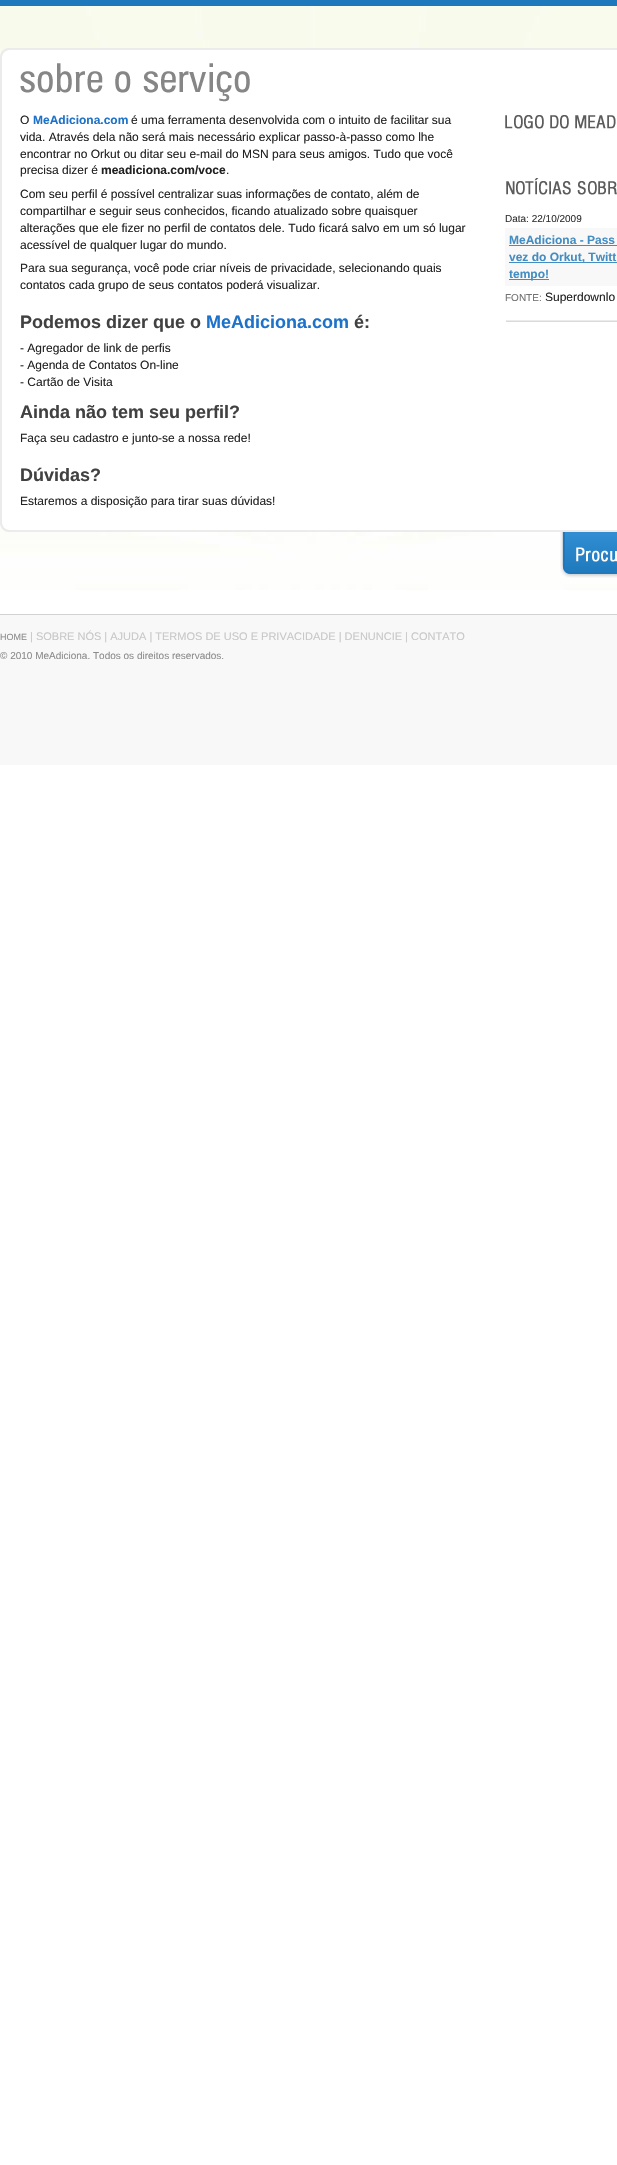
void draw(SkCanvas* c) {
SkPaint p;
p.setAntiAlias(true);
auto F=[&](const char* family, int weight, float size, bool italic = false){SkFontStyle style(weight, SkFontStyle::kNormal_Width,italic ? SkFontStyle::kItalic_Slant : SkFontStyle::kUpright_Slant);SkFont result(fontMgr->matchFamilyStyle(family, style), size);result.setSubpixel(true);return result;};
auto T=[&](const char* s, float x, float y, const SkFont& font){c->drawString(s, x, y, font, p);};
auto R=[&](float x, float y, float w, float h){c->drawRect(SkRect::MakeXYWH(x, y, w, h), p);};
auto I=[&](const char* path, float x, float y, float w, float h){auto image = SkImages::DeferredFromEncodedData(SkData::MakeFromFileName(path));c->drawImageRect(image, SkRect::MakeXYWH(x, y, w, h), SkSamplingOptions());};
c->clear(0xffffffff);
I("1.png",0,6,617,584);
p.setColor(0xff1e78bb);
R(0,0,617,6);
I("2.png",0,48,617,10);
I("3.png",0,58,617,464);
I("4.png",20,63,230,39);
auto f1 = F("Liberation Sans",400,12);
p.setColor(0xff222222);
T("O",20,124,f1);
auto f2 = F("Liberation Sans",700,12);
p.setColor(0xff1d72c9);
T("MeAdiciona.com",33,124,f2);
p.setColor(0xff222222);
T("é uma ferramenta desenvolvida com o intuito de facilitar sua",131,124,f1);
T("vida. Através dela não será mais necessário explicar passo-à-passo como lhe",20,141,f1);
T("encontrar no Orkut ou ditar seu e-mail do MSN para seus amigos. Tudo que você",20,158,f1);
T("precisa dizer é",20,174,f1);
T("meadiciona.com/voce",101,174,f2);
T(".",226,174,f1);
T("Com seu perfil é possível centralizar suas informações de contato, além de",20,198,f1);
T("compartilhar e seguir seus conhecidos, ficando atualizado sobre quaisquer",20,215,f1);
T("alterações que ele fizer no perfil de contatos dele. Tudo ficará salvo em um só lugar",20,232,f1);
T("acessível de qualquer lugar do mundo.",20,249,f1);
T("Para sua segurança, você pode criar níveis de privacidade, selecionando quais",20,272,f1);
T("contatos cada grupo de seus contatos poderá visualizar.",20,289,f1);
auto f3 = F("Liberation Sans",700,18);
p.setColor(0xff414141);
T("Podemos dizer que o",20,328,f3);
p.setColor(0xff1d72c9);
T("MeAdiciona.com",206,328,f3);
p.setColor(0xff414141);
T("é:",354,328,f3);
p.setColor(0xff222222);
T("- Agregador de link de perfis",20,352,f1);
T("- Agenda de Contatos On-line",20,369,f1);
T("- Cartão de Visita",20,386,f1);
p.setColor(0xff414141);
T("Ainda não tem seu perfil?",20,418,f3);
p.setColor(0xff222222);
T("Faça seu cadastro e junto-se a nossa rede!",20,442,f1);
p.setColor(0xff414141);
T("Dúvidas?",20,481,f3);
p.setColor(0xff222222);
T("Estaremos a disposição para tirar suas dúvidas!",20,505,f1);
I("5.png",505,115,111,14);
I("6.png",506,178,111,17);
auto f4 = F("Liberation Sans",400,10);
p.setColor(0xff333333);
T("Data: 22/10/2009",505,222,f4);
p.setColor(0xfff8f8f8);
R(505,228,112,58);
p.setColor(0xff448dc2);
T("MeAdiciona - Pass",509,244,f2);
R(509,245,108,1);
R(509,262,108,1);
T("vez do Orkut, Twitt",509,261,f2);
R(509,279,40,1);
T("tempo!",509,278,f2);
p.setColor(0xff727272);
T("FONTE:",505,301,f4);
p.setColor(0xff222222);
T("Superdownlo",545,301,f1);
I("7.png",506,320,111,2);
I("8.png",0,522,617,10);
I("9.png",560,532,57,46);
p.setColor(0xfff8f8f9);
R(0,615,617,150);
p.setColor(0xffd3d3d3);
R(0,614,617,1);
auto f5 = F("Liberation Sans",400,9);
p.setColor(0xff8c8c8c);
T("HOME",0,640,f5);
auto f6 = F("Liberation Sans",400,11);
p.setColor(0xffc8c8c8);
T("| SOBRE NÓS | AJUDA | TERMOS DE USO E PRIVACIDADE | DENUNCIE | CONTATO",30,640,f6);
p.setColor(0xff8c8c8c);
T("© 2010 MeAdiciona. Todos os direitos reservados.",0,659,f4);
}
